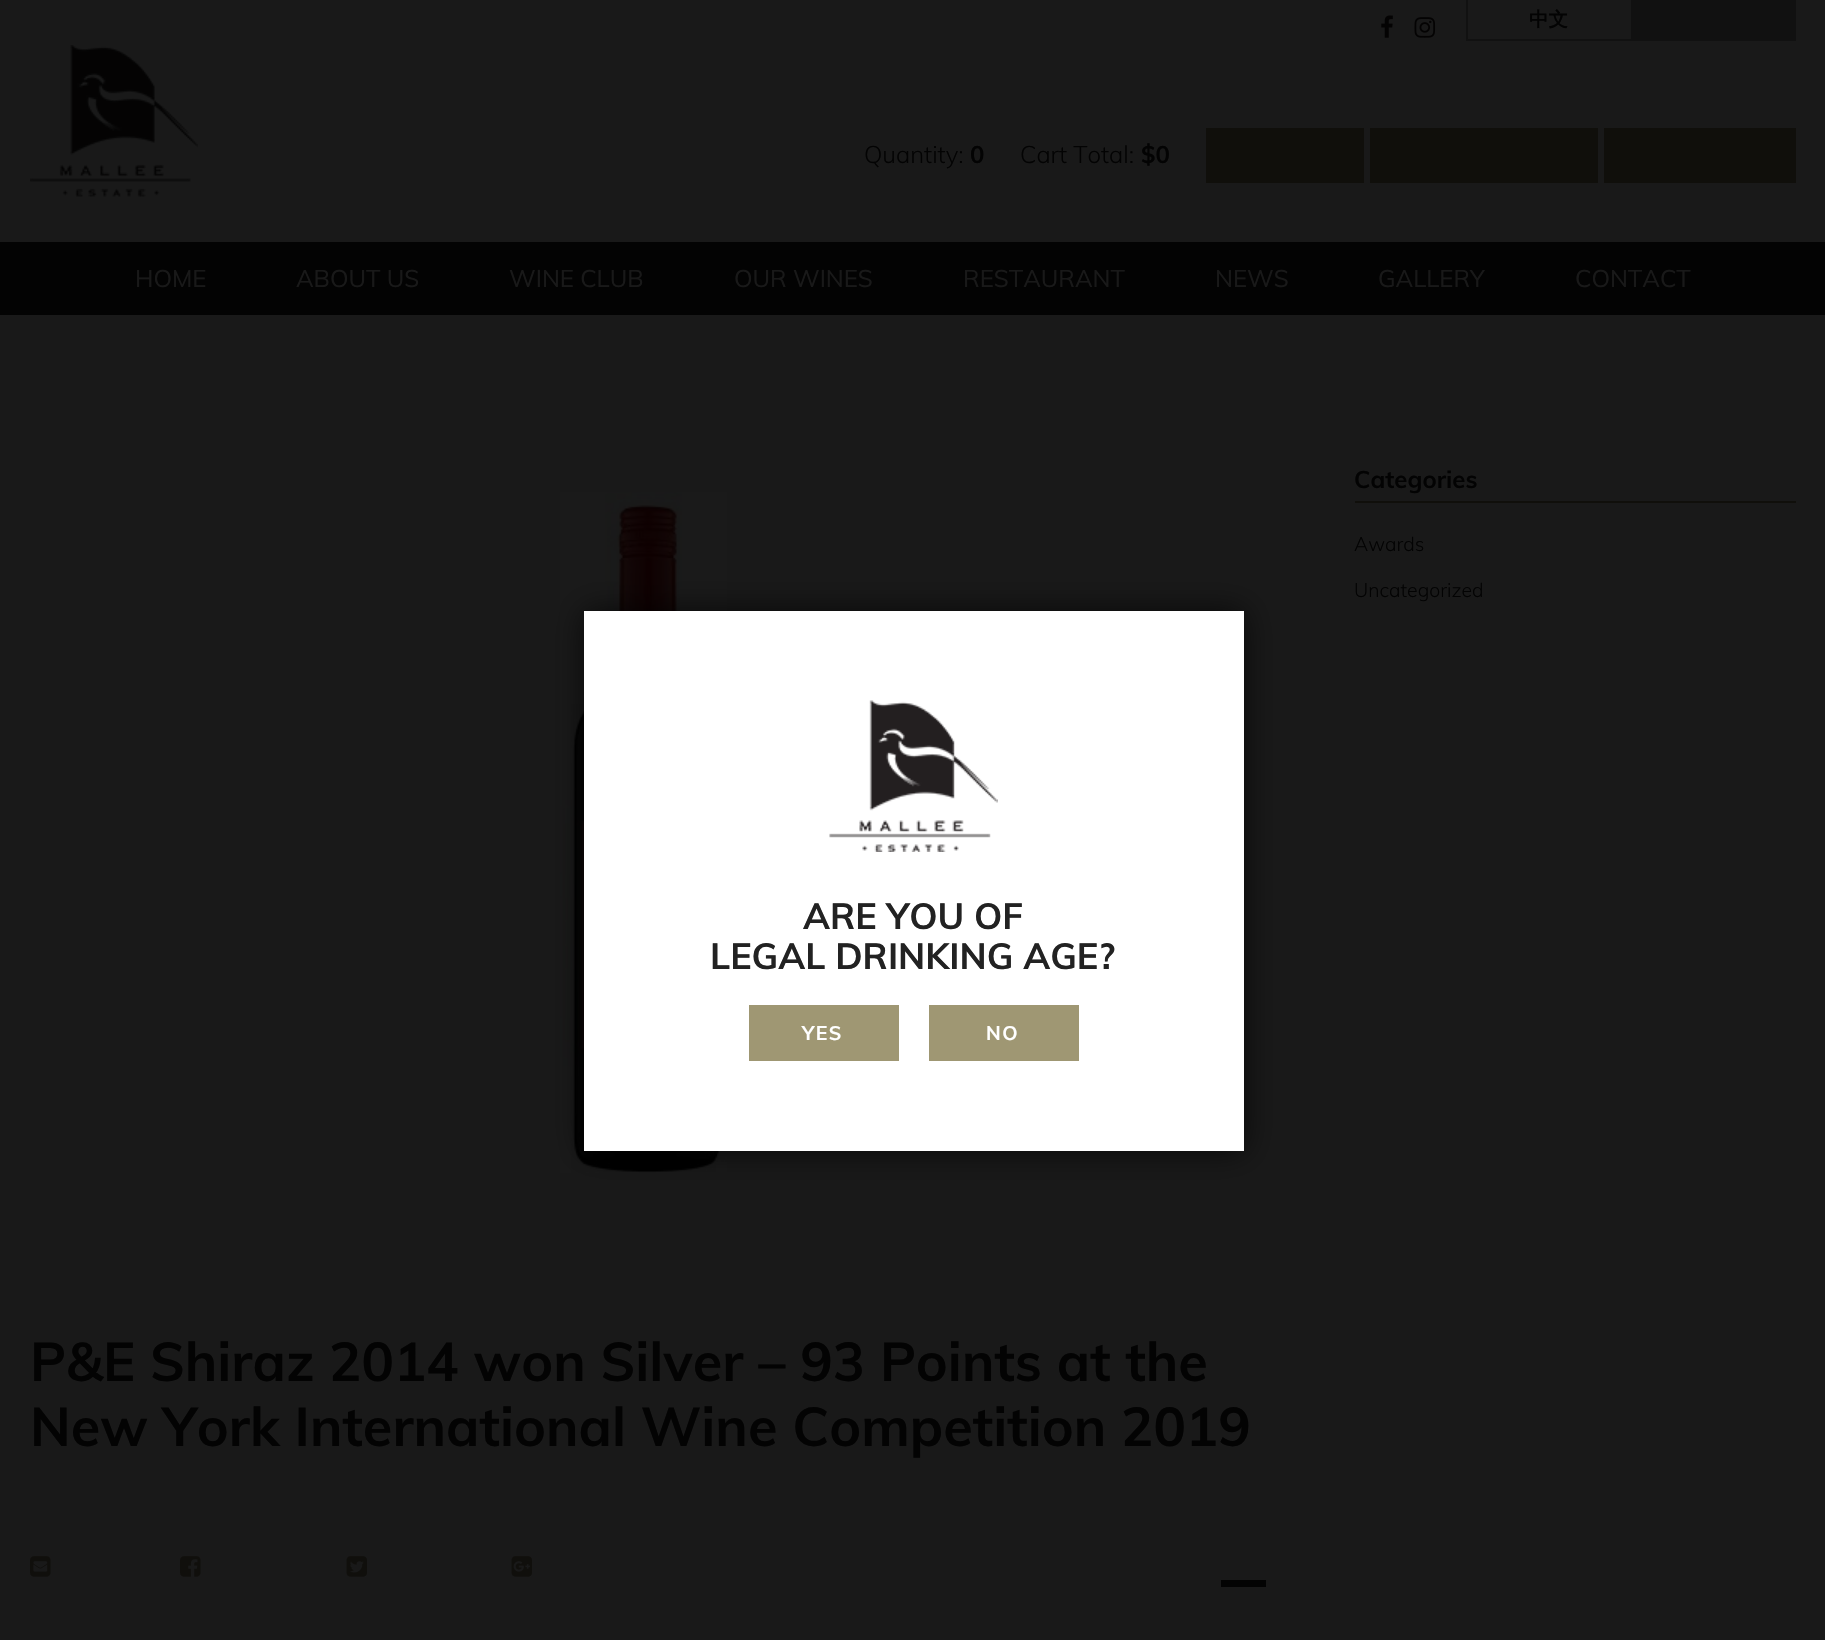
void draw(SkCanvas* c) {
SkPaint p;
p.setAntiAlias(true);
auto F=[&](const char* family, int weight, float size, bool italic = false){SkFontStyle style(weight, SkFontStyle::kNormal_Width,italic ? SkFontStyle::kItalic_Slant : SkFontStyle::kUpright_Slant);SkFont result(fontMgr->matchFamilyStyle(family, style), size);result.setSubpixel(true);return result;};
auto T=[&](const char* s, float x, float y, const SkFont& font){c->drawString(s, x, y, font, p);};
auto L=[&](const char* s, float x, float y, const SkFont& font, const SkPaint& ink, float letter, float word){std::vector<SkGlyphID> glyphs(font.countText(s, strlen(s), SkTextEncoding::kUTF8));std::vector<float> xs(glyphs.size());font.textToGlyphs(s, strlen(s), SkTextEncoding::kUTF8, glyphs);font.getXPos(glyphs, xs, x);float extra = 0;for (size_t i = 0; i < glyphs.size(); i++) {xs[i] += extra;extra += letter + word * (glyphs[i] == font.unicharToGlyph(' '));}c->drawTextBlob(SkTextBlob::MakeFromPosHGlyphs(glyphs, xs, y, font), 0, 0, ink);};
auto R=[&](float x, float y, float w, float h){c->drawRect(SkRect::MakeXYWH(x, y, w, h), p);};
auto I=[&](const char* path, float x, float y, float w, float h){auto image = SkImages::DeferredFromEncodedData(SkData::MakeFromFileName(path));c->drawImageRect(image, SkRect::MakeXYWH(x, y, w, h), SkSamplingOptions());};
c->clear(0xff191919);
I("1.png",1381,15,12,23);
I("2.png",1414,17,22,21);
p.setColor(0xff111111);
R(1794,0,2,41);
R(1466,39,330,2);
R(1466,0,2,41);
auto f1 = F("WenQuanYi Zen Hei",700,19.5);
p.setColor(0xff030303);
T("中文",1529,26,f1);
p.setColor(0xff111111);
R(1631,0,2,41);
R(1633,0,161,39);
I("3.png",30,45,168,152);
auto f2 = F("Muli",300,24);
p.setColor(0xff030303);
T("Quantity:",864,163,f2);
auto f3 = F("Muli",700,24);
T("0",970,163,f3);
T("Cart Total:",1020,163,f2);
T("$0",1141,163,f3);
p.setColor(0xff100f0b);
R(1206,128,158,55);
R(1370,128,228,55);
R(1604,128,192,55);
p.setColor(0xff030303);
R(0,242,1825,73);
auto f4 = F("Muli",400,24);
p.setColor(0xff191919);
T("HOME",135,287,f4);
T("ABOUT US",296,287,f4);
T("WINE CLUB",509,287,f4);
T("OUR WINES",734,287,f4);
T("RESTAURANT",963,287,f4);
T("NEWS",1215,287,f4);
T("GALLERY",1378,287,f4);
T("CONTACT",1575,287,f4);
p.setColor(0xff100f0b);
R(1355,501,441,2);
p.setColor(0xff030303);
T("Categories",1354,488,f3);
auto f5 = F("Muli",300,19.5);
T("Awards",1354,551,f5);
T("Uncategorized",1354,597,f5);
I("4.png",560,492,167,681);
auto f6 = F("Muli",700,54);
T("P&E Shiraz 2014 won Silver – 93 Points at the",30,1381,f6);
T("New York International Wine Competition 2019",30,1446,f6);
I("5.png",30,1556,21,21);
I("6.png",180,1556,21,21);
I("7.png",346,1556,22,21);
I("8.png",511,1556,22,21);
R(1221,1580,45,7);
p.setColor(0xb3000000);
p.setMaskFilter(SkMaskFilter::MakeBlur(kNormal_SkBlurStyle, 15));
c->drawRect(SkRect::MakeXYWH(584,611,660,540),p);
p.setMaskFilter(nullptr);
p.setColor(0xffffffff);
R(584,611,660,540);
I("9.png",829,700,169,152);
auto f7 = F("Muli",700,36);
p.setColor(0xff222222);
T("ARE YOU OF",803,929,f7);
T("LEGAL DRINKING AGE?",710,969,f7);
p.setColor(0xff9f9773);
R(749,1005,150,56);
auto f8 = F("Muli",700,19.5);
p.setColor(0xffffffff);
L("YES",802,1040,f8,p,1.5,0);
p.setColor(0xff9f9773);
R(929,1005,150,56);
p.setColor(0xffffffff);
L("NO",986,1040,f8,p,1.5,0);
}
